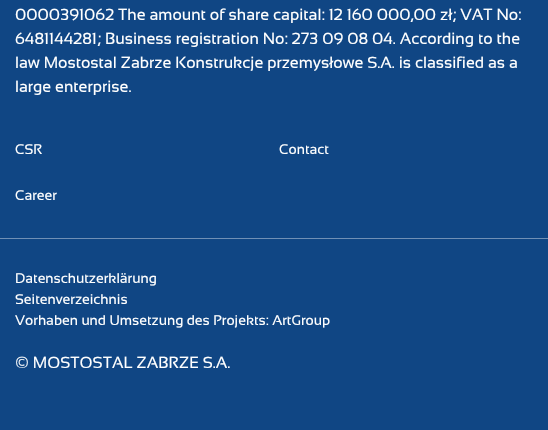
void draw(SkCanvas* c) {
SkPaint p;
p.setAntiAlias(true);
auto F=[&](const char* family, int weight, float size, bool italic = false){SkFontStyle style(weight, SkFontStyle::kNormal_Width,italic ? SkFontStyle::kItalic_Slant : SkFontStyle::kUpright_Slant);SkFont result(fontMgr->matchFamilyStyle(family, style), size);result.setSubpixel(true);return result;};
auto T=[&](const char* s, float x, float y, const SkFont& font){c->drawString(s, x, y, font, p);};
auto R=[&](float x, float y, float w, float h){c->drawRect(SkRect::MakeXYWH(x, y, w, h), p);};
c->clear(0xff104684);
auto f1 = F("Sansation",400,16);
p.setColor(0xffffffff);
T("0000391062 The amount of share capital: 12 160 000,00 zł; VAT No:",15,20,f1);
T("6481144281; Business registration No: 273 09 08 04. According to the",15,44,f1);
T("law Mostostal Zabrze Konstrukcje przemysłowe S.A. is classified as a",15,68,f1);
T("large enterprise.",15,92,f1);
auto f2 = F("Sansation",400,14);
T("CSR",15,154,f2);
T("Contact",279,154,f2);
T("Career",15,200,f2);
p.setColor(0xff7090b5);
R(0,238,548,1);
p.setColor(0xffffffff);
T("Datenschutzerklärung",15,283,f2);
T("Seitenverzeichnis",15,304,f2);
T("Vorhaben und Umsetzung des Projekts: ArtGroup",15,325,f2);
T("© MOSTOSTAL ZABRZE S.A.",15,368,f1);
}
